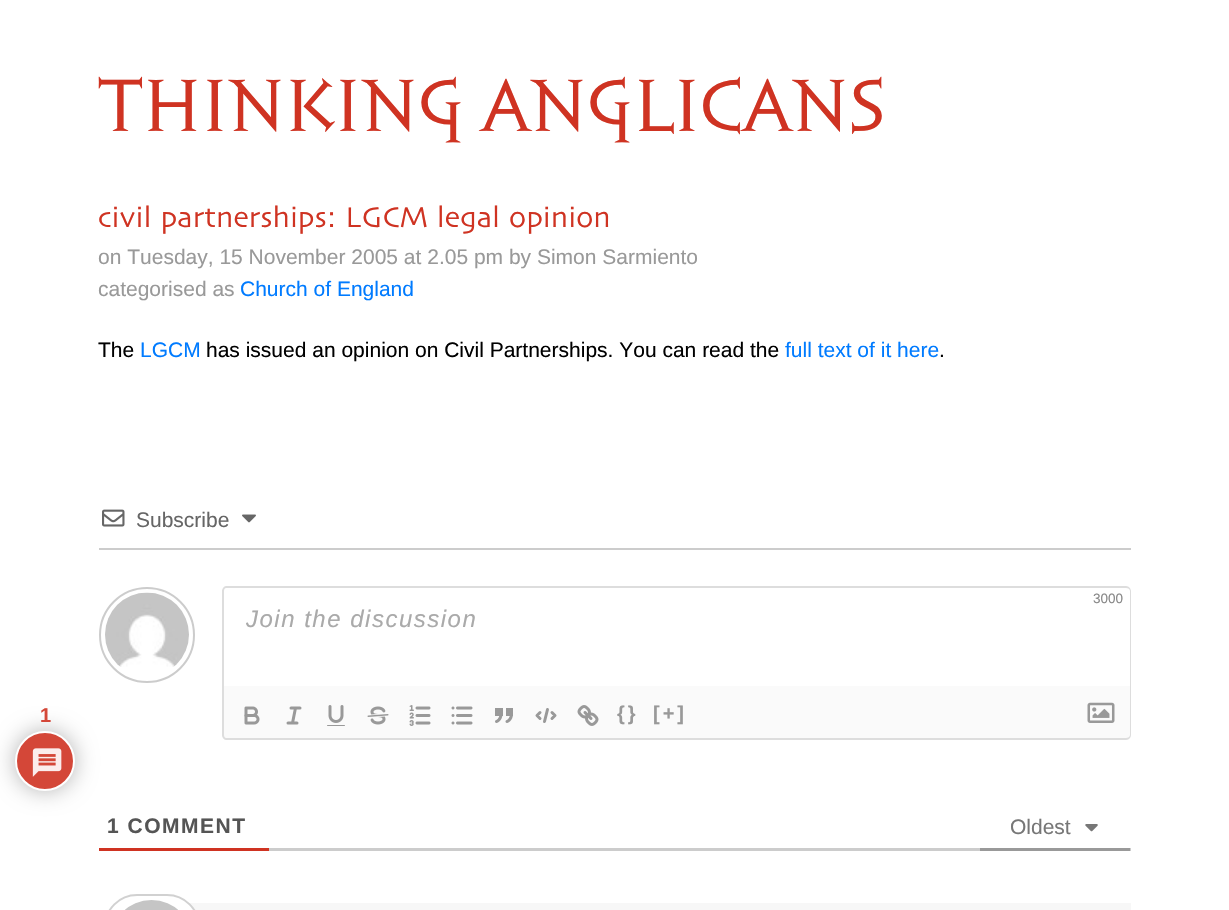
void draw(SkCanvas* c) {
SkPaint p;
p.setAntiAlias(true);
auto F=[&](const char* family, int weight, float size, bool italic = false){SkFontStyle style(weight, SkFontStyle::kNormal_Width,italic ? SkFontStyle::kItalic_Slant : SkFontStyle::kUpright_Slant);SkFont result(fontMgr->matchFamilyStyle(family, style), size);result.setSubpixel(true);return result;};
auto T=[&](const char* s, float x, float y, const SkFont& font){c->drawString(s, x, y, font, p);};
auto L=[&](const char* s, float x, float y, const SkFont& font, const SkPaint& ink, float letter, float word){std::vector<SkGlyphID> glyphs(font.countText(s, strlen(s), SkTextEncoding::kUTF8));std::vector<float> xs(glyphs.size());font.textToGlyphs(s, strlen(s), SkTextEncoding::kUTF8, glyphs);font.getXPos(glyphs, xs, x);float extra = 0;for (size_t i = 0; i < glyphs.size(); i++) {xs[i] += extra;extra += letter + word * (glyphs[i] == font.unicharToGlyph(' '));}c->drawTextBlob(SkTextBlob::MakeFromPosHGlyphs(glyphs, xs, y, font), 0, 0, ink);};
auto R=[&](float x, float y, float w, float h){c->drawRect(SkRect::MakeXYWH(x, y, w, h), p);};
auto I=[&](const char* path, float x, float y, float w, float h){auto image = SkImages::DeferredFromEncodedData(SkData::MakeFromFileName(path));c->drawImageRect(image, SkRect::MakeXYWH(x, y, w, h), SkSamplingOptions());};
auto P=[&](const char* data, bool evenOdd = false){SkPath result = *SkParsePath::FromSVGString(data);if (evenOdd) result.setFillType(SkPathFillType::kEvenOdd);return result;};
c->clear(0xffffffff);
p.setColor(0xffb3b3b3);
p.setMaskFilter(SkMaskFilter::MakeBlur(kNormal_SkBlurStyle, 11));
c->drawRoundRect(SkRect::MakeXYWH(15,731,60,60),30,30,p);
p.setMaskFilter(nullptr);
p.setColor(0xffd44738);
c->drawCircle(45,761,29,p);
p.setStroke(true);
p.setStrokeWidth(2);
p.setColor(0xffffffff);
c->drawCircle(45,761,29,p);
I("1.png",32,748,30,29);
auto f1 = F("Liberation Sans",700,20);
p.setStroke(false);
p.setColor(0xffd44738);
T("1",40,722,f1);
auto f2 = F("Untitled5",400,69);
p.setColor(0xffcf3322);
T("THINKING",98,131,f2);
T("ANGLICANS",481,131,f2);
auto f3 = F("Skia",400,30);
L("civil partnerships: LGCM legal opinion",98,227,f3,p,0,-6);
auto f4 = F("Liberation Sans",400,21);
p.setColor(0xff999999);
T("on Tuesday, 15 November 2005 at 2.05 pm by Simon Sarmiento",98,264,f4);
T("categorised as",98,296,f4);
p.setColor(0xff007bff);
T("Church of England",240,296,f4);
p.setColor(0xff000000);
T("The",98,357,f4);
p.setColor(0xff007bff);
T("LGCM",140,357,f4);
p.setColor(0xff000000);
T("has issued an opinion on Civil Partnerships. You can read the",206,357,f4);
p.setColor(0xff007bff);
T("full text of it here",785,357,f4);
p.setColor(0xff000000);
T(".",939,357,f4);
p.setColor(0xffcccccc);
R(99,548,1032,2);
I("2.png",102,509,23,18);
p.setColor(0xff666666);
T("Subscribe",136,527,f4);
I("3.png",242,514,14,9);
p.setStroke(true);
p.setColor(0xffcccccc);
c->drawCircle(147,635,47,p);
I("4.png",105,592,84,75);
p.setStroke(false);
p.setColor(0xffdddddd);
c->drawPath(P("M226 586h900c3 0 5 3 5 5v95h-909v-95c0-2 2-5 4-5zm0 2h900c2 0 4 1 4 3v95h-906v-95c0-2 1-3 2-3z",true),p);
auto f5 = F("Liberation Sans",400,13.5);
p.setColor(0xff888888);
T("3000",1093,603,f5);
auto f6 = F("Liberation Sans",400,24,true);
p.setColor(0xffaaaaaa);
L("Join the discussion",246,627,f6,p,1.5,0);
p.setColor(0xfffafafa);
c->drawPath(P("M222 686h909v49c0 3-2 5-5 5h-899c-3 0-5-2-5-5z"),p);
p.setColor(0xffdddddd);
c->drawPath(P("M222 686h909v49c0 2-2 5-5 5h-900c-2 0-4-3-4-5zm2 0h906v49c0 2-2 3-4 3h-900c-1 0-2-1-2-3z",true),p);
I("5.png",244,706,16,19);
p.setStroke(true);
p.setStrokeWidth(3);
p.setStrokeCap(SkPaint::kRound_Cap);
p.setStrokeJoin(SkPaint::kRound_Join);
p.setColor(0xff999999);
c->drawPath(P("M291 708h9m-12 15h9m-4.5 0l3-15"),p);
I("6.png",327,705,18,21);
I("7.png",367,706,22,19);
I("8.png",409,705,22,21);
I("9.png",451,706,22,19);
I("10.png",495,708,18,15);
c->drawPath(P("M540 712.5l-3 3l3 3m12-6l3 3l-3 3m-4.5-9l-3 12"),p);
I("11.png",577,705,22,21);
p.setStroke(false);
L("{}",617,720,f1,p,3,0);
L("[+]",653,720,f1,p,3,0);
I("12.png",1087,702,28,21);
p.setColor(0xffcccccc);
R(269,848,862,3);
p.setColor(0xffcf3322);
R(99,848,170,3);
auto f7 = F("Liberation Sans",700,21);
p.setColor(0xff555555);
L("1 COMMENT",107,833,f7,p,1.5,0);
p.setColor(0xff999999);
R(980,848,150,3);
p.setColor(0xff777777);
T("Oldest",1010,834,f4);
I("13.png",1085,824,13,8);
p.setColor(0xfff7f7f7);
R(180,903,951,7);
p.setColor(0xffffffff);
c->drawRoundRect(SkRect::MakeXYWH(105,895,94,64),47,47,p);
p.setStroke(true);
p.setStrokeWidth(2);
p.setStrokeCap(SkPaint::kButt_Cap);
p.setStrokeJoin(SkPaint::kMiter_Join);
p.setColor(0xffd1d1d1);
c->drawRoundRect(SkRect::MakeXYWH(105,895,94,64),47,47,p);
I("14.png",125,900,53,10);
}
